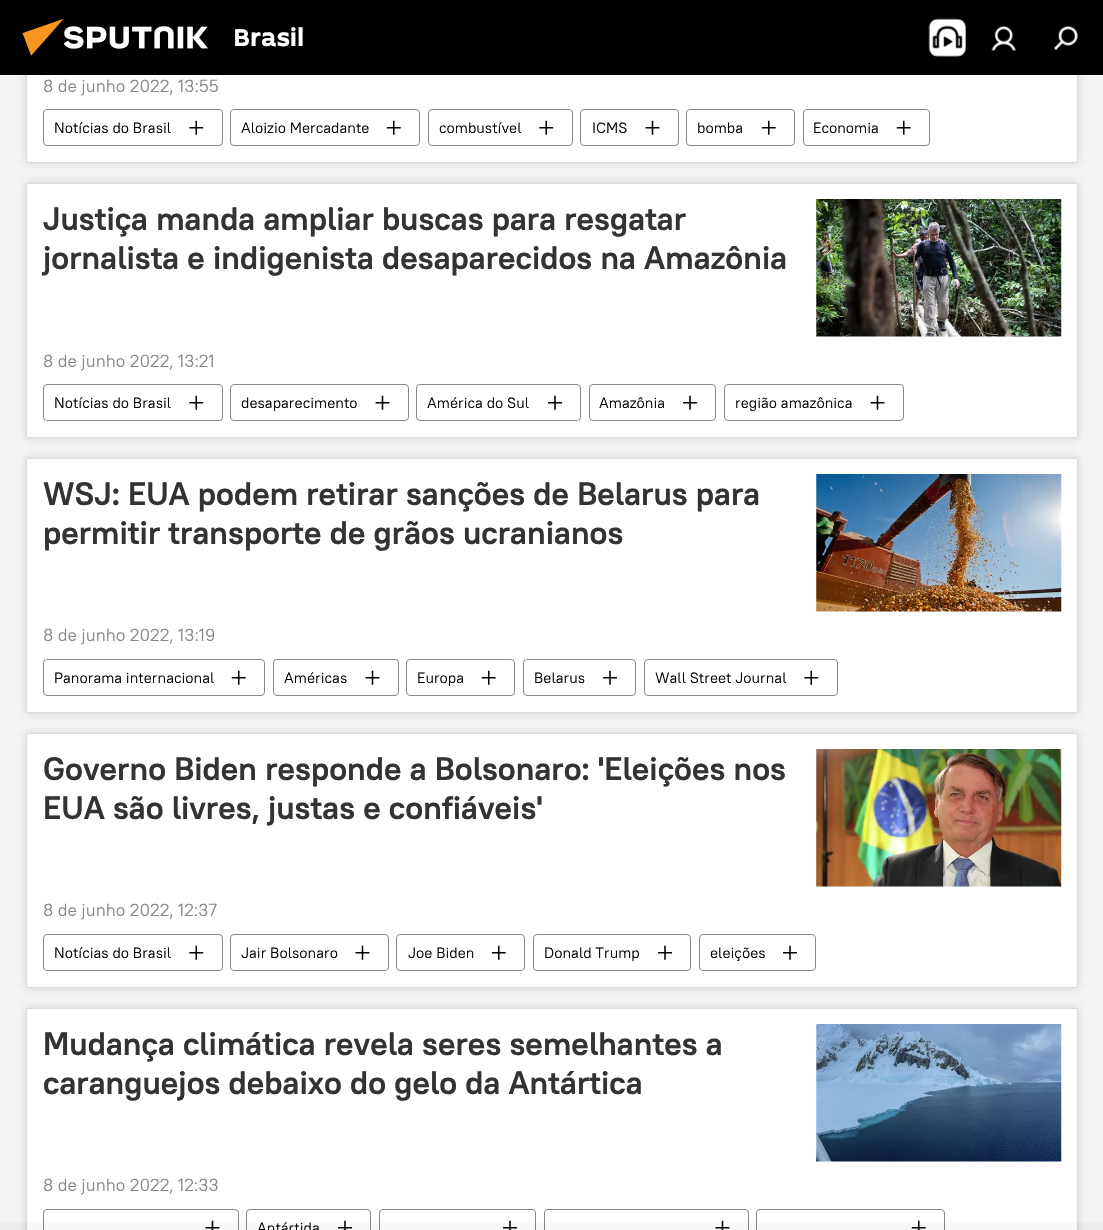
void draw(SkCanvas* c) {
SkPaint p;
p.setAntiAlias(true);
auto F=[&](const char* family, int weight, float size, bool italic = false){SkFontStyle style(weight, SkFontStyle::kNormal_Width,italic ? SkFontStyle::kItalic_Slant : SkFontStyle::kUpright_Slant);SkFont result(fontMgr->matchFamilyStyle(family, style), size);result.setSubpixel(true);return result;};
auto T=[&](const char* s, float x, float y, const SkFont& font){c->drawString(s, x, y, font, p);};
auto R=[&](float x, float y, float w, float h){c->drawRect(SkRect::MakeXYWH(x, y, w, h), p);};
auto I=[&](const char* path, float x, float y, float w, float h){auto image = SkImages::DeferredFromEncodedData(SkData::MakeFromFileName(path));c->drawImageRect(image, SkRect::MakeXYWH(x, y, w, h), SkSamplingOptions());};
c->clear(0xfff4f4f4);
p.setColor(0x26000000);
p.setMaskFilter(SkMaskFilter::MakeBlur(kNormal_SkBlurStyle, 4));
c->drawRoundRect(SkRect::MakeXYWH(26,-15,1052,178),2.5,2.5,p);
p.setMaskFilter(nullptr);
p.setColor(0xffffffff);
c->drawRoundRect(SkRect::MakeXYWH(26.5,-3.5,1051,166),2,2,p);
p.setStroke(true);
p.setStrokeWidth(1);
p.setColor(0xffdadada);
c->drawRoundRect(SkRect::MakeXYWH(26.5,-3.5,1051,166),2,2,p);
p.setStroke(false);
p.setColor(0xff000000);
R(0,0,1103,75);
I("1.png",22,18,186,38);
auto f1 = F("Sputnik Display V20",700,24);
p.setColor(0xffffffff);
T("Brasil",233,46,f1);
I("2.png",928,18,38,39);
I("3.png",991,25,25,26);
I("4.png",1053,25,25,26);
auto f2 = F("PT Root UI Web",400,17.5);
p.setColor(0xff878787);
T("8 de junho 2022, 13:55",43,92,f2);
p.setStroke(true);
c->drawRoundRect(SkRect::MakeXYWH(43.5,109.5,179,36),3.5,3.5,p);
auto f3 = F("PT Root UI Web",400,15);
p.setStroke(false);
p.setColor(0xff000000);
T("Notícias do Brasil",54,133,f3);
I("5.png",189,120,15,15);
p.setStroke(true);
p.setColor(0xff878787);
c->drawRoundRect(SkRect::MakeXYWH(230.5,109.5,189,36),3.5,3.5,p);
p.setStroke(false);
p.setColor(0xff000000);
T("Aloizio Mercadante",241,133,f3);
I("6.png",386,120,15,15);
p.setStroke(true);
p.setColor(0xff878787);
c->drawRoundRect(SkRect::MakeXYWH(428.5,109.5,144,36),3.5,3.5,p);
p.setStroke(false);
p.setColor(0xff000000);
T("combustível",439,133,f3);
I("5.png",539,120,15,15);
p.setStroke(true);
p.setColor(0xff878787);
c->drawRoundRect(SkRect::MakeXYWH(580.5,109.5,98,36),3.5,3.5,p);
p.setStroke(false);
p.setColor(0xff000000);
T("ICMS",592,133,f3);
I("7.png",645,120,15,15);
p.setStroke(true);
p.setColor(0xff878787);
c->drawRoundRect(SkRect::MakeXYWH(686.5,109.5,108,36),3.5,3.5,p);
p.setStroke(false);
p.setColor(0xff000000);
T("bomba",697,133,f3);
I("6.png",761,120,15,15);
p.setStroke(true);
p.setColor(0xff878787);
c->drawRoundRect(SkRect::MakeXYWH(803.5,109.5,126,36),3.5,3.5,p);
p.setStroke(false);
p.setColor(0xff000000);
T("Economia",813,133,f3);
I("6.png",896,120,15,15);
p.setColor(0x26000000);
p.setMaskFilter(SkMaskFilter::MakeBlur(kNormal_SkBlurStyle, 4));
c->drawRoundRect(SkRect::MakeXYWH(26,183,1052,255),2.5,2.5,p);
p.setMaskFilter(nullptr);
p.setColor(0xffffffff);
c->drawRoundRect(SkRect::MakeXYWH(26.5,183.5,1051,254),2,2,p);
p.setStroke(true);
p.setColor(0xffdadada);
c->drawRoundRect(SkRect::MakeXYWH(26.5,183.5,1051,254),2,2,p);
auto f4 = F("PT Root UI Web",700,32.5);
p.setStroke(false);
p.setColor(0xff333333);
T("Justiça manda ampliar buscas para resgatar",43,230,f4);
T("jornalista e indigenista desaparecidos na Amazônia",43,269,f4);
I("8.png",816,199,246,138);
p.setColor(0xff878787);
T("8 de junho 2022, 13:21",43,367,f2);
p.setStroke(true);
c->drawRoundRect(SkRect::MakeXYWH(43.5,384.5,179,36),3.5,3.5,p);
p.setStroke(false);
p.setColor(0xff000000);
T("Notícias do Brasil",54,408,f3);
I("5.png",189,395,15,15);
p.setStroke(true);
p.setColor(0xff878787);
c->drawRoundRect(SkRect::MakeXYWH(230.5,384.5,178,36),3.5,3.5,p);
p.setStroke(false);
p.setColor(0xff000000);
T("desaparecimento",241,408,f3);
I("7.png",375,395,15,15);
p.setStroke(true);
p.setColor(0xff878787);
c->drawRoundRect(SkRect::MakeXYWH(416.5,384.5,164,36),3.5,3.5,p);
p.setStroke(false);
p.setColor(0xff000000);
T("América do Sul",427,408,f3);
I("9.png",548,395,14,15);
p.setStroke(true);
p.setColor(0xff878787);
c->drawRoundRect(SkRect::MakeXYWH(589.5,384.5,126,36),3.5,3.5,p);
p.setStroke(false);
p.setColor(0xff000000);
T("Amazônia",599,408,f3);
I("9.png",683,395,14,15);
p.setStroke(true);
p.setColor(0xff878787);
c->drawRoundRect(SkRect::MakeXYWH(724.5,384.5,179,36),3.5,3.5,p);
p.setStroke(false);
p.setColor(0xff000000);
T("região amazônica",735,408,f3);
I("7.png",870,395,15,15);
p.setColor(0x26000000);
p.setMaskFilter(SkMaskFilter::MakeBlur(kNormal_SkBlurStyle, 4));
c->drawRoundRect(SkRect::MakeXYWH(26,458,1052,255),2.5,2.5,p);
p.setMaskFilter(nullptr);
p.setColor(0xffffffff);
c->drawRoundRect(SkRect::MakeXYWH(26.5,458.5,1051,254),2,2,p);
p.setStroke(true);
p.setColor(0xffdadada);
c->drawRoundRect(SkRect::MakeXYWH(26.5,458.5,1051,254),2,2,p);
p.setStroke(false);
p.setColor(0xff333333);
T("WSJ: EUA podem retirar sanções de Belarus para",43,505,f4);
T("permitir transporte de grãos ucranianos",43,544,f4);
I("10.png",816,474,246,138);
p.setColor(0xff878787);
T("8 de junho 2022, 13:19",43,641,f2);
p.setStroke(true);
c->drawRoundRect(SkRect::MakeXYWH(43.5,659.5,221,36),3.5,3.5,p);
p.setStroke(false);
p.setColor(0xff000000);
T("Panorama internacional",54,683,f3);
I("6.png",231,670,15,15);
p.setStroke(true);
p.setColor(0xff878787);
c->drawRoundRect(SkRect::MakeXYWH(273.5,659.5,125,36),3.5,3.5,p);
p.setStroke(false);
p.setColor(0xff000000);
T("Américas",284,683,f3);
I("7.png",365,670,15,15);
p.setStroke(true);
p.setColor(0xff878787);
c->drawRoundRect(SkRect::MakeXYWH(406.5,659.5,108,36),3.5,3.5,p);
p.setStroke(false);
p.setColor(0xff000000);
T("Europa",417,683,f3);
I("6.png",481,670,15,15);
p.setStroke(true);
p.setColor(0xff878787);
c->drawRoundRect(SkRect::MakeXYWH(523.5,659.5,112,36),3.5,3.5,p);
p.setStroke(false);
p.setColor(0xff000000);
T("Belarus",534,683,f3);
I("9.png",603,670,14,15);
p.setStroke(true);
p.setColor(0xff878787);
c->drawRoundRect(SkRect::MakeXYWH(644.5,659.5,193,36),3.5,3.5,p);
p.setStroke(false);
p.setColor(0xff000000);
T("Wall Street Journal",655,683,f3);
I("5.png",804,670,15,15);
p.setColor(0x26000000);
p.setMaskFilter(SkMaskFilter::MakeBlur(kNormal_SkBlurStyle, 4));
c->drawRoundRect(SkRect::MakeXYWH(26,733,1052,255),2.5,2.5,p);
p.setMaskFilter(nullptr);
p.setColor(0xffffffff);
c->drawRoundRect(SkRect::MakeXYWH(26.5,733.5,1051,254),2,2,p);
p.setStroke(true);
p.setColor(0xffdadada);
c->drawRoundRect(SkRect::MakeXYWH(26.5,733.5,1051,254),2,2,p);
p.setStroke(false);
p.setColor(0xff333333);
T("Governo Biden responde a Bolsonaro: 'Eleições nos",43,780,f4);
T("EUA são livres, justas e confiáveis'",43,819,f4);
I("11.png",816,749,246,138);
p.setColor(0xff878787);
T("8 de junho 2022, 12:37",43,916,f2);
p.setStroke(true);
c->drawRoundRect(SkRect::MakeXYWH(43.5,934.5,179,36),3.5,3.5,p);
p.setStroke(false);
p.setColor(0xff000000);
T("Notícias do Brasil",54,958,f3);
I("5.png",189,945,15,15);
p.setStroke(true);
p.setColor(0xff878787);
c->drawRoundRect(SkRect::MakeXYWH(230.5,934.5,158,36),3.5,3.5,p);
p.setStroke(false);
p.setColor(0xff000000);
T("Jair Bolsonaro",241,958,f3);
I("7.png",355,945,15,15);
p.setStroke(true);
p.setColor(0xff878787);
c->drawRoundRect(SkRect::MakeXYWH(396.5,934.5,128,36),3.5,3.5,p);
p.setStroke(false);
p.setColor(0xff000000);
T("Joe Biden",408,958,f3);
I("6.png",491,945,15,15);
p.setStroke(true);
p.setColor(0xff878787);
c->drawRoundRect(SkRect::MakeXYWH(533.5,934.5,157,36),3.5,3.5,p);
p.setStroke(false);
p.setColor(0xff000000);
T("Donald Trump",544,958,f3);
I("9.png",658,945,14,15);
p.setStroke(true);
p.setColor(0xff878787);
c->drawRoundRect(SkRect::MakeXYWH(699.5,934.5,116,36),3.5,3.5,p);
p.setStroke(false);
p.setColor(0xff000000);
T("eleições",710,958,f3);
I("9.png",783,945,14,15);
p.setColor(0x26000000);
p.setMaskFilter(SkMaskFilter::MakeBlur(kNormal_SkBlurStyle, 4));
c->drawRoundRect(SkRect::MakeXYWH(26,1008,1052,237),2.5,2.5,p);
p.setMaskFilter(nullptr);
p.setColor(0xffffffff);
c->drawRoundRect(SkRect::MakeXYWH(26.5,1008.5,1051,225),2,2,p);
p.setStroke(true);
p.setColor(0xffdadada);
c->drawRoundRect(SkRect::MakeXYWH(26.5,1008.5,1051,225),2,2,p);
p.setStroke(false);
p.setColor(0xff333333);
T("Mudança climática revela seres semelhantes a",43,1055,f4);
T("caranguejos debaixo do gelo da Antártica",43,1094,f4);
I("12.png",816,1024,246,138);
p.setColor(0xff878787);
T("8 de junho 2022, 12:33",43,1191,f2);
p.setStroke(true);
c->drawRoundRect(SkRect::MakeXYWH(43.5,1209.5,195,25),3.5,3.5,p);
I("13.png",205,1220,15,10);
c->drawRoundRect(SkRect::MakeXYWH(246.5,1209.5,124,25),3.5,3.5,p);
p.setStroke(false);
p.setColor(0xff000000);
T("Antártida",257,1233,f3);
I("14.png",338,1220,14,10);
p.setStroke(true);
p.setColor(0xff878787);
c->drawRoundRect(SkRect::MakeXYWH(379.5,1209.5,156,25),3.5,3.5,p);
I("14.png",503,1220,14,10);
c->drawRoundRect(SkRect::MakeXYWH(544.5,1209.5,204,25),3.5,3.5,p);
I("13.png",715,1220,15,10);
c->drawRoundRect(SkRect::MakeXYWH(756.5,1209.5,188,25),3.5,3.5,p);
I("15.png",911,1220,15,10);
p.setStroke(false);
{
const SkColor colors[] = {0x00000000,0x0d000000,0x17000000,0x2e000000};
const float stops[] = {0,.61,.86,1};
const SkPoint ends[] = {{552,1211}, {552,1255}};
p.setShader(SkGradientShader::MakeLinear(ends, colors, stops, 4, SkTileMode::kClamp));
p.setAlpha(255);
}
R(0,1223,1103,7);
}
